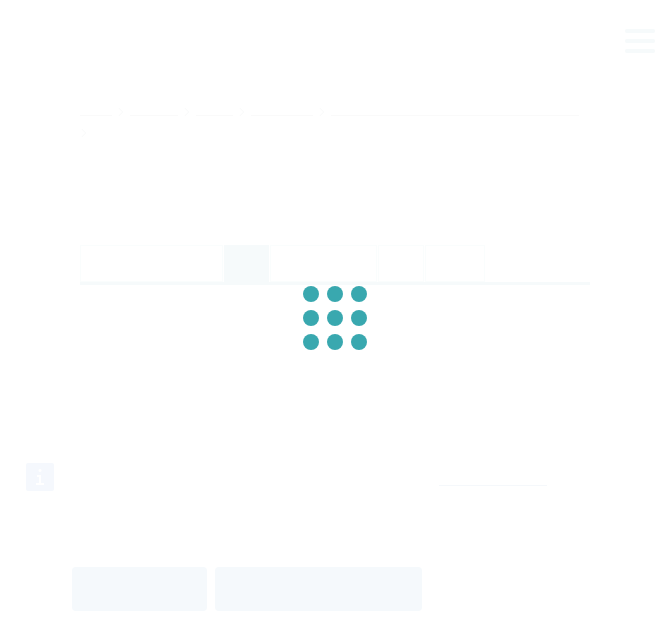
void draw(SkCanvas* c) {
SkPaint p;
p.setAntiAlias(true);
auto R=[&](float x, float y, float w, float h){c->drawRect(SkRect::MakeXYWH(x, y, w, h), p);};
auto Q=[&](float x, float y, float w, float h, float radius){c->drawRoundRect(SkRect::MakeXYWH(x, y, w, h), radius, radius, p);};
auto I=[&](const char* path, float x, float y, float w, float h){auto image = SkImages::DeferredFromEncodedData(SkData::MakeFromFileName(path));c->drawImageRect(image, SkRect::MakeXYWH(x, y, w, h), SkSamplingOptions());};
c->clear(0xffffffff);
p.setColor(0xfff6fafb);
Q(625,29,30,4,2);
Q(625,39,30,4,2);
Q(625,49,30,4,2);
p.setColor(0xfffafafa);
R(80,115,32,1);
I("1.png",118,108,6,8);
R(130,115,48,1);
I("1.png",184,108,6,8);
R(196,115,37,1);
I("1.png",239,108,6,8);
R(251,115,62,1);
I("1.png",319,108,6,8);
R(331,115,248,1);
I("1.png",81,129,6,8);
p.setColor(0xfff6fafb);
R(80,282,510,3);
p.setStroke(true);
p.setStrokeWidth(1);
p.setColor(0xfffafdfd);
c->drawRect(SkRect::MakeXYWH(80.5,245.5,142,36),p);
p.setStroke(false);
p.setColor(0xfff6fafb);
R(224,245,45,37);
p.setStroke(true);
p.setColor(0xfffafdfd);
c->drawRect(SkRect::MakeXYWH(270.5,245.5,106,36),p);
c->drawRect(SkRect::MakeXYWH(378.5,245.5,45,36),p);
c->drawRect(SkRect::MakeXYWH(425.5,245.5,59,36),p);
p.setStroke(false);
p.setColor(0xff39a8af);
c->drawCircle(311,294,8,p);
c->drawCircle(335,294,8,p);
c->drawCircle(359,294,8,p);
c->drawCircle(311,318,8,p);
c->drawCircle(335,318,8,p);
c->drawCircle(359,318,8,p);
c->drawCircle(311,342,8,p);
c->drawCircle(335,342,8,p);
c->drawCircle(359,342,8,p);
I("2.png",26,463,28,28);
p.setColor(0xfff5f8fb);
R(439,485,108,1);
p.setColor(0xfff5f9fc);
Q(72,567,135,44,4);
Q(215,567,207,44,4);
}
